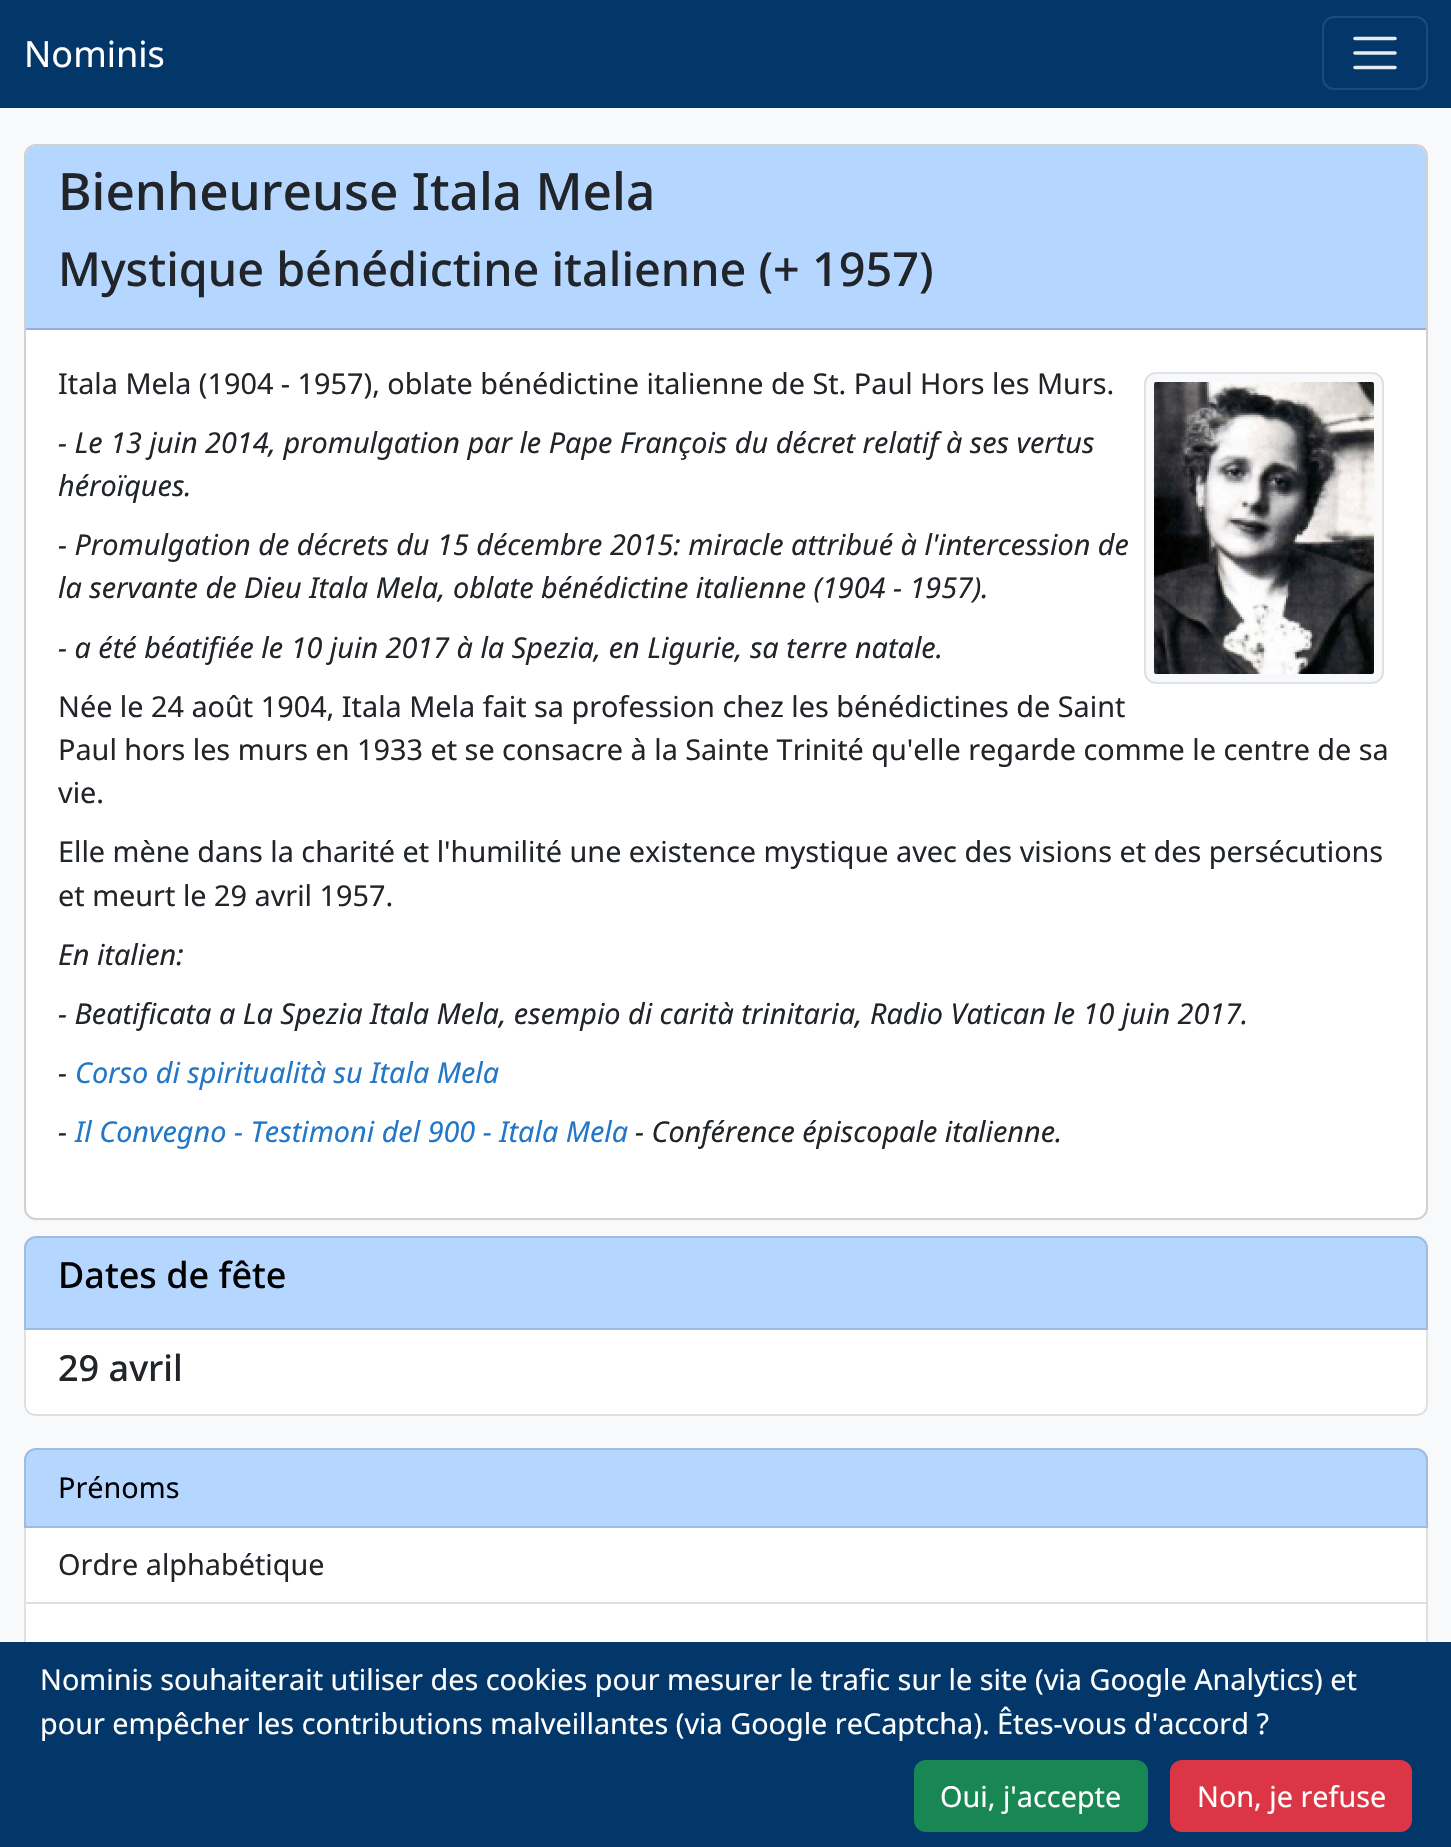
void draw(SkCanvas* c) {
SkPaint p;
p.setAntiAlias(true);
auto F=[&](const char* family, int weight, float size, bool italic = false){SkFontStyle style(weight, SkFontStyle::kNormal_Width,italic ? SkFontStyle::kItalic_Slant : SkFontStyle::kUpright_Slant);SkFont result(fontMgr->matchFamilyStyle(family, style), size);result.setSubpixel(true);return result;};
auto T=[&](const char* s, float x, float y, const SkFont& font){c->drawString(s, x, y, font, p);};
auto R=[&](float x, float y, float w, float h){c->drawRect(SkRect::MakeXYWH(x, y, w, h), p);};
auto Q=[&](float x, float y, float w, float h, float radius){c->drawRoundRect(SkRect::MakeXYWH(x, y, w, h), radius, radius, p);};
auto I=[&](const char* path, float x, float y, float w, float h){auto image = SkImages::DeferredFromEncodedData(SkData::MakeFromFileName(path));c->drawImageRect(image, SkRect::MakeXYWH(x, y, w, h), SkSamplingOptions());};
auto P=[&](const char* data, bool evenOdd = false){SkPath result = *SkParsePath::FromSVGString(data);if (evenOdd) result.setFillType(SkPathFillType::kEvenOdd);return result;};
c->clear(0xfff8f9fa);
p.setColor(0xff033769);
R(0,0,1451,108);
auto f1 = F("Noto Sans",400,36);
p.setColor(0xffffffff);
T("Nominis",24,67,f1);
p.setStroke(true);
p.setStrokeWidth(2);
p.setColor(0xff1c4b78);
c->drawRoundRect(SkRect::MakeXYWH(1323,17,104,72),11,11,p);
p.setStrokeWidth(3.6);
p.setStrokeCap(SkPaint::kRound_Cap);
p.setColor(0xffe6ebf0);
c->drawPath(P("M1355 38.5h40m-40 14.5h40m-40 14.5h40"),p);
p.setStroke(false);
p.setColor(0xffffffff);
Q(24,144,1404,1076,12);
p.setStroke(true);
p.setStrokeWidth(2);
p.setStrokeCap(SkPaint::kButt_Cap);
p.setColor(0x2e000000);
c->drawRoundRect(SkRect::MakeXYWH(25,145,1402,1074),11,11,p);
p.setStroke(false);
p.setColor(0xffb5d6ff);
c->drawPath(P("M36 146h1380c5.5 0 10 4.5 10 10v174h-1400v-174c0-5.5 4.5-10 10-10z"),p);
p.setColor(0xff95b0d2);
R(26,328,1400,2);
auto f2 = F("Noto Sans",500,51.3);
p.setColor(0xff212529);
T("Bienheureuse Itala Mela",58,210,f2);
auto f3 = F("Noto Sans",500,46.75);
T("Mystique bénédictine italienne (+ 1957)",58,286,f3);
auto f4 = F("Noto Sans",400,28.8);
T("Itala Mela (1904 - 1957), oblate bénédictine italienne de St. Paul Hors les Murs.",58,394,f4);
p.setColor(0xfff8f9fa);
c->drawRoundRect(SkRect::MakeXYWH(1145,373,238,310),11,11,p);
p.setStroke(true);
p.setColor(0xffdee2e6);
c->drawRoundRect(SkRect::MakeXYWH(1145,373,238,310),11,11,p);
I("1.png",1154,382,220,292);
auto f5 = F("Noto Sans",400,28.8,true);
p.setStroke(false);
p.setColor(0xff212529);
T("- Le 13 juin 2014, promulgation par le Pape François du décret relatif à ses vertus",58,453,f5);
T("héroïques.",58,496,f5);
T("- Promulgation de décrets du 15 décembre 2015: miracle attribué à l'intercession de",58,555,f5);
T("la servante de Dieu Itala Mela, oblate bénédictine italienne (1904 - 1957).",58,598,f5);
T("- a été béatifiée le 10 juin 2017 à la Spezia, en Ligurie, sa terre natale.",58,658,f5);
T("Née le 24 août 1904, Itala Mela fait sa profession chez les bénédictines de Saint",58,717,f4);
T("Paul hors les murs en 1933 et se consacre à la Sainte Trinité qu'elle regarde comme le centre de sa",58,760,f4);
T("vie.",58,803,f4);
T("Elle mène dans la charité et l'humilité une existence mystique avec des visions et des persécutions",58,862,f4);
T("et meurt le 29 avril 1957.",58,906,f4);
T("En italien:",58,965,f5);
T("- Beatificata a La Spezia Itala Mela, esempio di carità trinitaria, Radio Vatican le 10 juin 2017.",58,1024,f5);
T("-",58,1083,f5);
p.setColor(0xff2277c8);
T("Corso di spiritualità su Itala Mela",75,1083,f5);
p.setColor(0xff212529);
T("-",58,1142,f5);
p.setColor(0xff2277c8);
T("Il Convegno - Testimoni del 900 - Itala Mela",75,1142,f5);
p.setColor(0xff212529);
T("- Conférence épiscopale italienne.",635,1142,f5);
p.setColor(0xffb5d6ff);
c->drawPath(P("M36 1236h1380c6.5 0 12 5.5 12 12v82h-1404v-82c0-6.5 5.5-12 12-12z"),p);
p.setStroke(true);
p.setColor(0x1f000000);
c->drawPath(P("M36 1237h1380c6 0 11 5 11 11v81h-1402v-81c0-6 5-11 11-11z"),p);
auto f6 = F("Noto Sans",500,36);
p.setStroke(false);
p.setColor(0xff000000);
T("Dates de fête",58,1288,f6);
p.setColor(0xffffffff);
c->drawPath(P("M24 1330h1404v74c0 6.5-5.5 12-12 12h-1380c-6.5 0-12-5.5-12-12z"),p);
p.setColor(0x1f000000);
c->drawPath(P("M24 1330h1404v74c0 7-5 12-12 12h-1380c-7 0-12-5-12-12zm2 0h1400v74c0 6-4 10-10 10h-1380c-6 0-10-4-10-10z",true),p);
p.setColor(0xff212529);
T("29 avril",58,1381,f6);
p.setColor(0xffb5d6ff);
c->drawPath(P("M36 1448h1380c6.5 0 12 5.5 12 12v68h-1404v-68c0-6.5 5.5-12 12-12z"),p);
p.setStroke(true);
p.setColor(0x1f000000);
c->drawPath(P("M36 1449h1380c6 0 11 5 11 11v67h-1402v-67c0-6 5-11 11-11z"),p);
p.setStroke(false);
p.setColor(0xff000000);
T("Prénoms",58,1498,f4);
p.setColor(0xffffffff);
R(24,1528,1404,76);
p.setColor(0xffdfdfdf);
c->drawPath(P("M1428 1528v76l-2-2v-74z"),p);
p.setColor(0x1f000000);
c->drawPath(P("M1428 1604h-1404l2-2h1400z"),p);
c->drawPath(P("M24 1604v-76h2v74z"),p);
p.setColor(0xff212529);
T("Ordre alphabétique",58,1575,f4);
p.setColor(0xffffffff);
R(24,1604,1402,38);
p.setColor(0xffdfdfdf);
c->drawPath(P("M1428 1604v78l-2-2v-76z"),p);
p.setColor(0x1f000000);
c->drawPath(P("M24 1682v-78h2v76z"),p);
p.setColor(0xff033769);
R(0,1642,1451,205);
p.setColor(0xffffffff);
T("Nominis souhaiterait utiliser des cookies pour mesurer le trafic sur le site (via Google Analytics) et",40,1690,f4);
T("pour empêcher les contributions malveillantes (via Google reCaptcha). Êtes-vous d'accord ?",40,1734,f4);
p.setColor(0xff198754);
c->drawRoundRect(SkRect::MakeXYWH(915,1761,232,70),11,11,p);
p.setStroke(true);
c->drawRoundRect(SkRect::MakeXYWH(915,1761,232,70),11,11,p);
p.setStroke(false);
p.setColor(0xffffffff);
T("Oui, j'accepte",940,1807,f4);
p.setColor(0xffdc3545);
c->drawRoundRect(SkRect::MakeXYWH(1171,1761,240,70),11,11,p);
p.setStroke(true);
c->drawRoundRect(SkRect::MakeXYWH(1171,1761,240,70),11,11,p);
p.setStroke(false);
p.setColor(0xffffffff);
T("Non, je refuse",1197,1807,f4);
}
